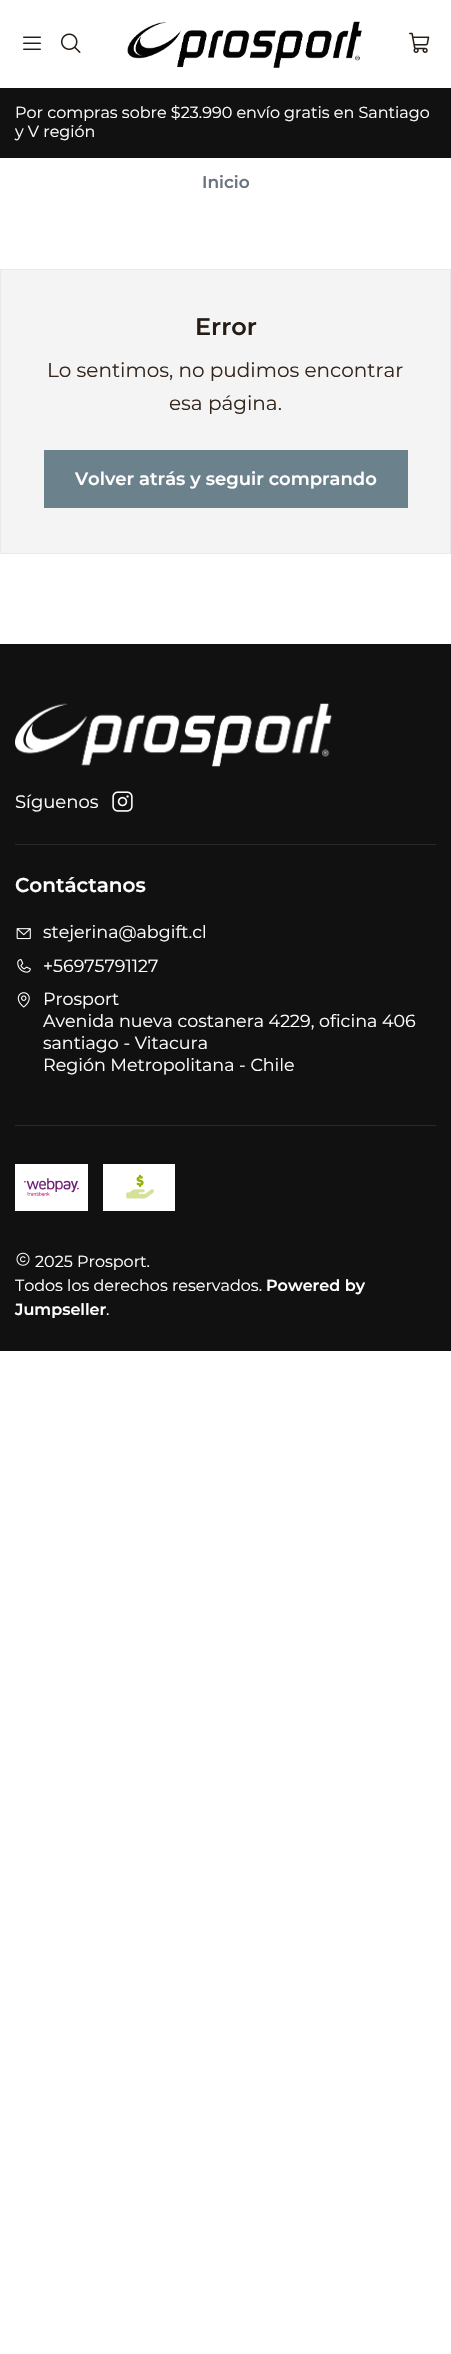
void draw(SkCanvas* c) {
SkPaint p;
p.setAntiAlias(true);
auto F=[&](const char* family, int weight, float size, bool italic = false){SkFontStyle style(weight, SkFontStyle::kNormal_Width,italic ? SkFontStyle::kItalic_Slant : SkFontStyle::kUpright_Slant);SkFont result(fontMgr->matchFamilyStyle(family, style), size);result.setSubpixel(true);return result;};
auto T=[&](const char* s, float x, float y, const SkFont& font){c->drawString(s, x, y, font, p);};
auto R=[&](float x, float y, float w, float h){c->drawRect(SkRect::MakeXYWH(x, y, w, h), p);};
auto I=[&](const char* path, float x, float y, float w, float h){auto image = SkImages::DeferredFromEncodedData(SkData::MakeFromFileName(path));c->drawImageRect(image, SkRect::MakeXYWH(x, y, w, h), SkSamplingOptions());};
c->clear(0xffffffff);
I("1.png",23,36,18,14);
I("2.png",61,33,20,20);
I("3.png",127,21,235,47);
I("4.png",409,32,21,21);
p.setColor(0xff111111);
R(0,88,451,70);
auto f1 = F("Montserrat",400,16);
p.setColor(0xffffffff);
T("Por compras sobre $23.990 envío gratis en Santiago",15,118,f1);
T("y V región",15,137,f1);
auto f2 = F("Montserrat",600,17);
p.setColor(0xff6b7280);
T("Inicio",202,188,f2);
p.setColor(0xfff5f4f4);
c->drawRect(SkRect::MakeXYWH(.5,269.5,450,284),p);
p.setStroke(true);
p.setStrokeWidth(1);
p.setColor(0xffebe9e9);
c->drawRect(SkRect::MakeXYWH(.5,269.5,450,284),p);
auto f3 = F("Montserrat",600,24);
p.setStroke(false);
p.setColor(0xff261c15);
T("Error",195,335,f3);
auto f4 = F("Montserrat",400,20);
p.setColor(0xff35271d);
T("Lo sentimos, no pudimos encontrar",47,377,f4);
T("esa página.",169,410,f4);
p.setColor(0xff6b818c);
R(44,450,364,58);
auto f5 = F("Montserrat",600,18);
p.setColor(0xffffffff);
T("Volver atrás y seguir comprando",75,485,f5);
p.setColor(0xff111111);
R(0,644,451,707);
I("5.png",15,703,317,64);
auto f6 = F("Montserrat",400,18);
p.setColor(0xffffffff);
T("Síguenos",15,808,f6);
I("6.png",112,791,21,21);
p.setColor(0xff292929);
R(15,844,421,1);
auto f7 = F("Montserrat",600,20);
p.setColor(0xffffffff);
T("Contáctanos",15,892,f7);
I("7.png",16,928,15,12);
auto f8 = F("Montserrat",400,17.5);
T("stejerina@abgift.cl",43,938,f8);
I("8.png",17,959,14,14);
T("+56975791127",43,972,f8);
I("9.png",17,992,13,16);
T("Prosport",43,1005,f8);
T("Avenida nueva costanera 4229, oficina 406",43,1027,f8);
T("santiago - Vitacura",43,1049,f8);
T("Región Metropolitana - Chile",43,1071,f8);
p.setColor(0xff292929);
R(15,1125,421,1);
p.setColor(0xffffffff);
R(15,1164,73,47);
I("10.png",24,1178,55,18);
R(103,1164,72,47);
I("11.png",126,1174,28,25);
I("12.png",16,1252,14,14);
T("2025 Prosport.",35,1267,f1);
T("Todos los derechos reservados.",15,1291,f1);
auto f9 = F("Montserrat",600,16);
T("Powered by",266,1291,f9);
T("Jumpseller",15,1315,f9);
T(".",106,1315,f1);
}
